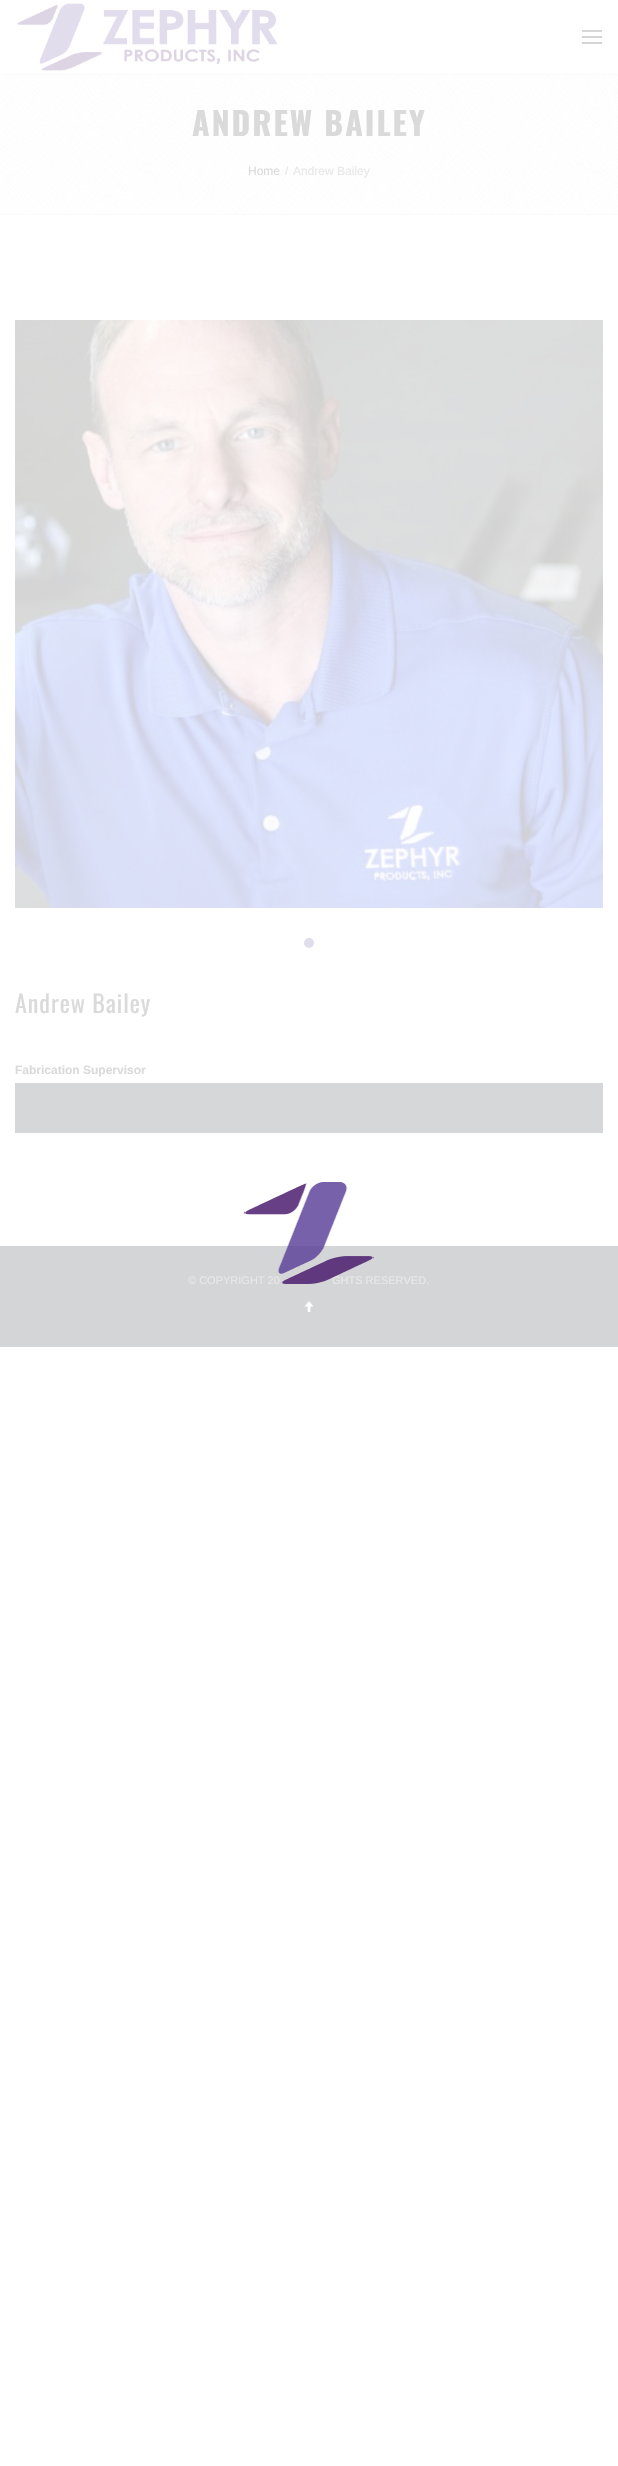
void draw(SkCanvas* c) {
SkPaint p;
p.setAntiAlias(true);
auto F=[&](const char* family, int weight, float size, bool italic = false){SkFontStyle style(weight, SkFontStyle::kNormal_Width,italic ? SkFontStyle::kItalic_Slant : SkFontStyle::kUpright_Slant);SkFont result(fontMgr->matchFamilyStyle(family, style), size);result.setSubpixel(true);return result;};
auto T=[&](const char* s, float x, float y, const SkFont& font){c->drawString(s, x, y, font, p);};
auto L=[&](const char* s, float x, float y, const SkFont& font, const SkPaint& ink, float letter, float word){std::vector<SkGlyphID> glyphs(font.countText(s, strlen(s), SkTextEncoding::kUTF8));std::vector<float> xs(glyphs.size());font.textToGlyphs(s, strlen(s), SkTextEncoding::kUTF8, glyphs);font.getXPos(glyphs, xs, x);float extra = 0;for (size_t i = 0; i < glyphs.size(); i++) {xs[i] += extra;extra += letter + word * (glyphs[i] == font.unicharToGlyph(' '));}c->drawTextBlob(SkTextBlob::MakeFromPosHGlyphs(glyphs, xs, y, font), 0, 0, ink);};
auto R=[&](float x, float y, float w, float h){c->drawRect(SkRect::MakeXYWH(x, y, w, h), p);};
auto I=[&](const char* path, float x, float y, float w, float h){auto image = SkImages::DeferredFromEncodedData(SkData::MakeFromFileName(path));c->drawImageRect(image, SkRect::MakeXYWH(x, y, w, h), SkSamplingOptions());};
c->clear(0xffffffff);
I("1.png",17,3,261,68);
p.setColor(0xffd6d6d6);
R(582,36,20,2);
R(582,30,20,2);
R(582,42,20,2);
p.setColor(0xfffafafa);
R(0,74,618,1);
I("2.png",0,75,618,139);
R(0,214,618,1);
auto f1 = F("Oswald",700,32);
p.setColor(0xffdadada);
L("ANDREW BAILEY",192,136,f1,p,2,0);
auto f2 = F("Arimo",400,12);
T("Home",248,175,f2);
p.setColor(0xffe8e8e8);
T("/",285,175,f2);
T("Andrew Bailey",293,175,f2);
I("3.png",15,320,588,588);
p.setColor(0xffe1dded);
c->drawCircle(309,943,5,p);
auto f3 = F("Oswald",400,24);
p.setColor(0xffdadada);
L("Andrew Bailey",15,1013,f3,p,1,0);
auto f4 = F("Arimo",700,12);
T("Fabrication Supervisor",15,1074,f4);
p.setColor(0xffd5d7d8);
R(15,1083,588,50);
p.setColor(0xffd4d5d6);
R(0,1246,618,101);
auto f5 = F("Arimo",400,11);
p.setColor(0xffe8e8e8);
T("© COPYRIGHT 20",188,1284,f5);
T("GHTS RESERVED.",332,1284,f5);
I("4.png",304,1301,10,11);
I("5.png",244,1182,130,102);
}
